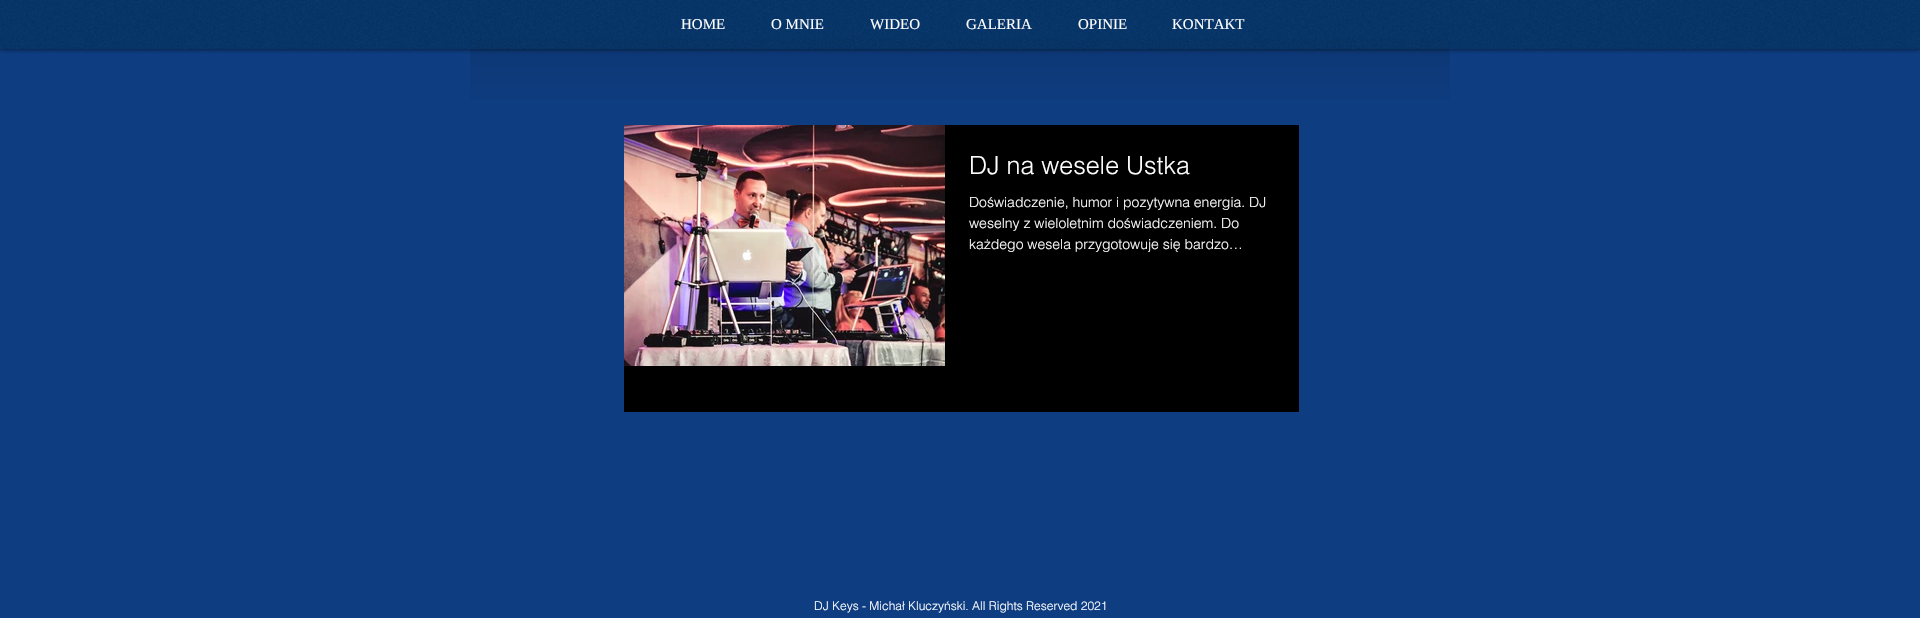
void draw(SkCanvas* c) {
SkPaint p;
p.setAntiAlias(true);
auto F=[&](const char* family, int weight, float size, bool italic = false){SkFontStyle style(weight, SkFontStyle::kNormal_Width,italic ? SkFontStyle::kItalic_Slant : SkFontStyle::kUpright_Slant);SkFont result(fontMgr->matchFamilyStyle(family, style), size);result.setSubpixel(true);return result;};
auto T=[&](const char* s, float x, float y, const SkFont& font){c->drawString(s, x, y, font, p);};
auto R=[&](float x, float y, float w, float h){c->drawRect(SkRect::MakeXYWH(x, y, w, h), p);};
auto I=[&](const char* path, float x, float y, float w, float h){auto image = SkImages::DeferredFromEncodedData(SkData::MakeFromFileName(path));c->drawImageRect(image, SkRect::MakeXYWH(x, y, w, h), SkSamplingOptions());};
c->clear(0xff0e3d82);
I("2.png",470,39,980,61);
c->save();
c->clipRect(SkRect::MakeXYWH(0,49,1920,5));
p.setColor(0xb3000000);
p.setMaskFilter(SkMaskFilter::MakeBlur(kNormal_SkBlurStyle, 2.5));
c->drawRect(SkRect::MakeXYWH(0,0,1920,49),p);
p.setMaskFilter(nullptr);
c->restore();
p.setColor(0xab002e5d);
R(0,0,1920,49);
I("1.png",0,0,1920,49);
auto f1 = F("Liberation Serif",400,15);
p.setColor(0xffffffff);
T("HOME",681,29,f1);
T("O MNIE",771,29,f1);
T("WIDEO",870,29,f1);
T("GALERIA",966,29,f1);
T("OPINIE",1078,29,f1);
T("KONTAKT",1172,29,f1);
p.setColor(0xff000000);
R(624,125,675,287);
I("3.png",624,125,321,241);
auto f2 = F("helvetica",300,25);
p.setColor(0xffffffff);
T("DJ na wesele Ustka",969,174,f2);
auto f3 = F("helvetica",300,14);
T("Doświadczenie, humor i pozytywna energia. DJ",969,207,f3);
T("weselny z wieloletnim doświadczeniem. Do",969,228,f3);
T("każdego wesela przygotowuje się bardzo…",969,249,f3);
auto f4 = F("helvetica",300,12);
T("DJ Keys - Michał Kluczyński. All Rights Reserved 2021",814,610,f4);
}
